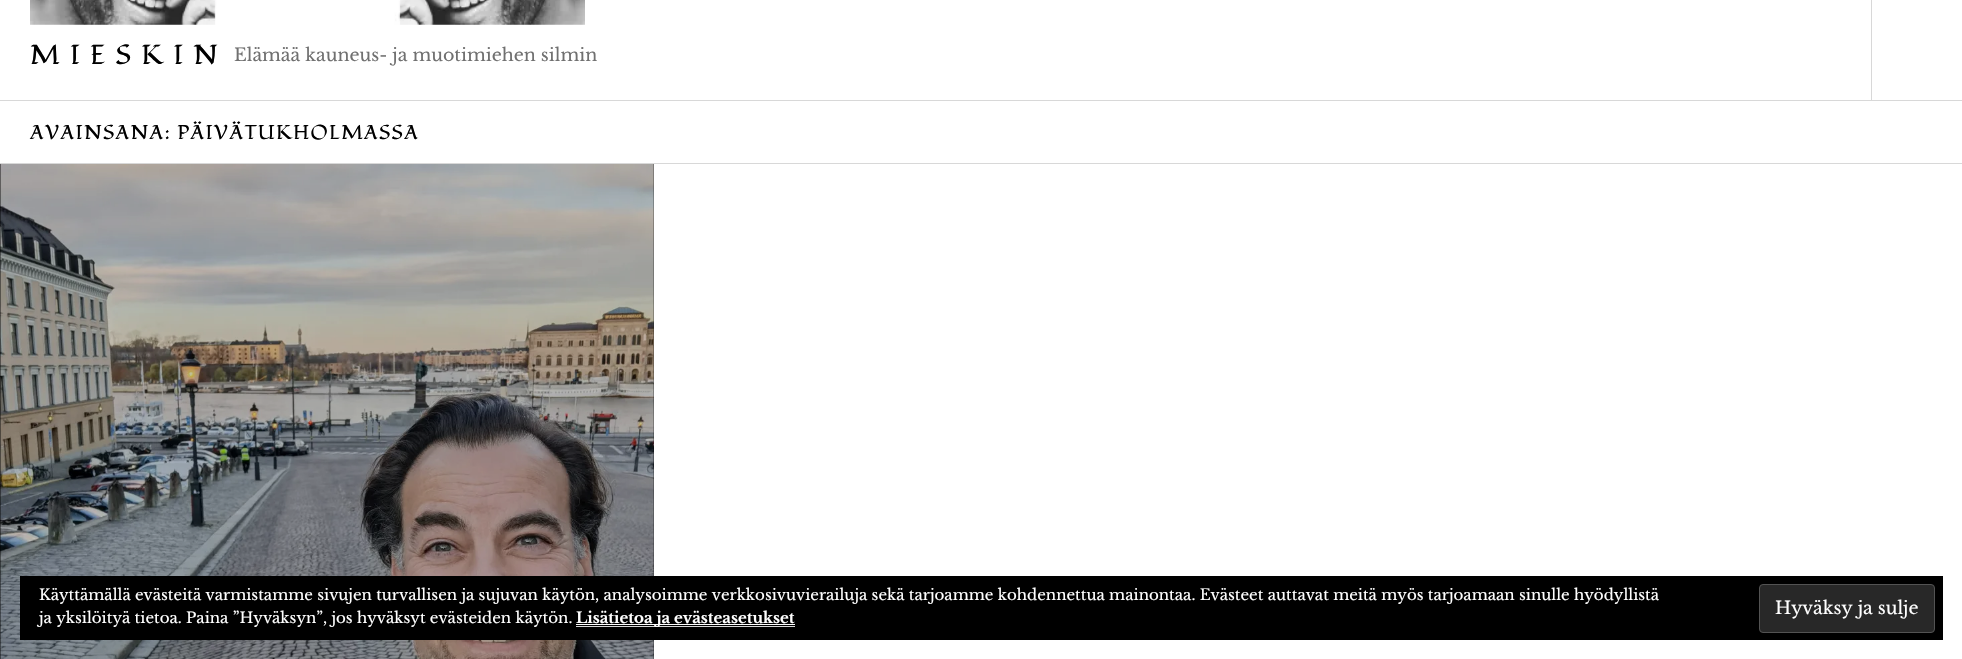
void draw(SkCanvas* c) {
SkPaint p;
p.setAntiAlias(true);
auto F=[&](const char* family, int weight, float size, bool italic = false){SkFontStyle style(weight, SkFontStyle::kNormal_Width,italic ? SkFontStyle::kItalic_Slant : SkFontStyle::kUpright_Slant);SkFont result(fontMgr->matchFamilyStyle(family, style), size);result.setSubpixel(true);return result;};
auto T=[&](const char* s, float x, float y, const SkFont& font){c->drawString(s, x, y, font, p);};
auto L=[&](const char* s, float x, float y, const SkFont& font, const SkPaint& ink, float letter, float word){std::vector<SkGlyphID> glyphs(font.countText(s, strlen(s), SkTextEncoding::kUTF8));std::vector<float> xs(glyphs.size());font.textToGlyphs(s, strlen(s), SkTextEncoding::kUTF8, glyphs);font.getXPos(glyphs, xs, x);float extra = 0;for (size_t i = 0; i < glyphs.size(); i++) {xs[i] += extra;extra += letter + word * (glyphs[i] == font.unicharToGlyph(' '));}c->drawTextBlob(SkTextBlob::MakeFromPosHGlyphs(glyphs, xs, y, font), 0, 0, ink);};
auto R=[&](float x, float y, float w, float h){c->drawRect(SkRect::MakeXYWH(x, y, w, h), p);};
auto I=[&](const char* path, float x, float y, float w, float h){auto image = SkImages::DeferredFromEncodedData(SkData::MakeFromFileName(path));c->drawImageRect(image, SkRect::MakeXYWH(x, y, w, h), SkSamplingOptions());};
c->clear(0xffffffff);
p.setColor(0xffd8d8d8);
R(0,100,1962,1);
I("1.png",30,0,555,25);
auto f1 = F("Fondamento",400,27.5);
p.setColor(0xff000000);
L("M I E S K I N",30,64,f1,p,1.75,0);
auto f2 = F("Libre Baskerville",400,17.5);
p.setColor(0xff707070);
T("Elämää kauneus- ja muotimiehen silmin",234,61,f2);
p.setColor(0xffd8d8d8);
R(1871,0,1,100);
R(0,163,1962,1);
auto f3 = F("Fondamento",400,20);
p.setColor(0xff000000);
L("AVAINSANA: PÄIVÄTUKHOLMASSA",30,139,f3,p,1.25,0);
R(0,164,654,495);
I("2.png",0,164,654,495);
R(20,576,1923,64);
auto f4 = F("Libre Baskerville",400,15);
p.setColor(0xffffffff);
T("Käyttämällä evästeitä varmistamme sivujen turvallisen ja sujuvan käytön, analysoimme verkkosivuvierailuja sekä tarjoamme kohdennettua mainontaa. Evästeet auttavat meitä myös tarjoamaan sinulle hyödyllistä",39,600,f4);
T("ja yksilöityä tietoa. Paina ”Hyväksyn”, jos hyväksyt evästeiden käytön.",39,623,f4);
p.setColor(0xffd8d8d8);
R(576,626,219,1);
p.setColor(0xffffffff);
R(576,624,219,1);
auto f5 = F("Libre Baskerville",700,15);
T("Lisätietoa ja evästeasetukset",576,623,f5);
p.setColor(0xff282828);
c->drawRoundRect(SkRect::MakeXYWH(1759.5,584.5,175,48),3.5,3.5,p);
p.setStroke(true);
p.setStrokeWidth(1);
p.setColor(0xff535353);
c->drawRoundRect(SkRect::MakeXYWH(1759.5,584.5,175,48),3.5,3.5,p);
p.setStroke(false);
p.setColor(0xffffffff);
T("Hyväksy ja sulje",1775,614,f2);
}
